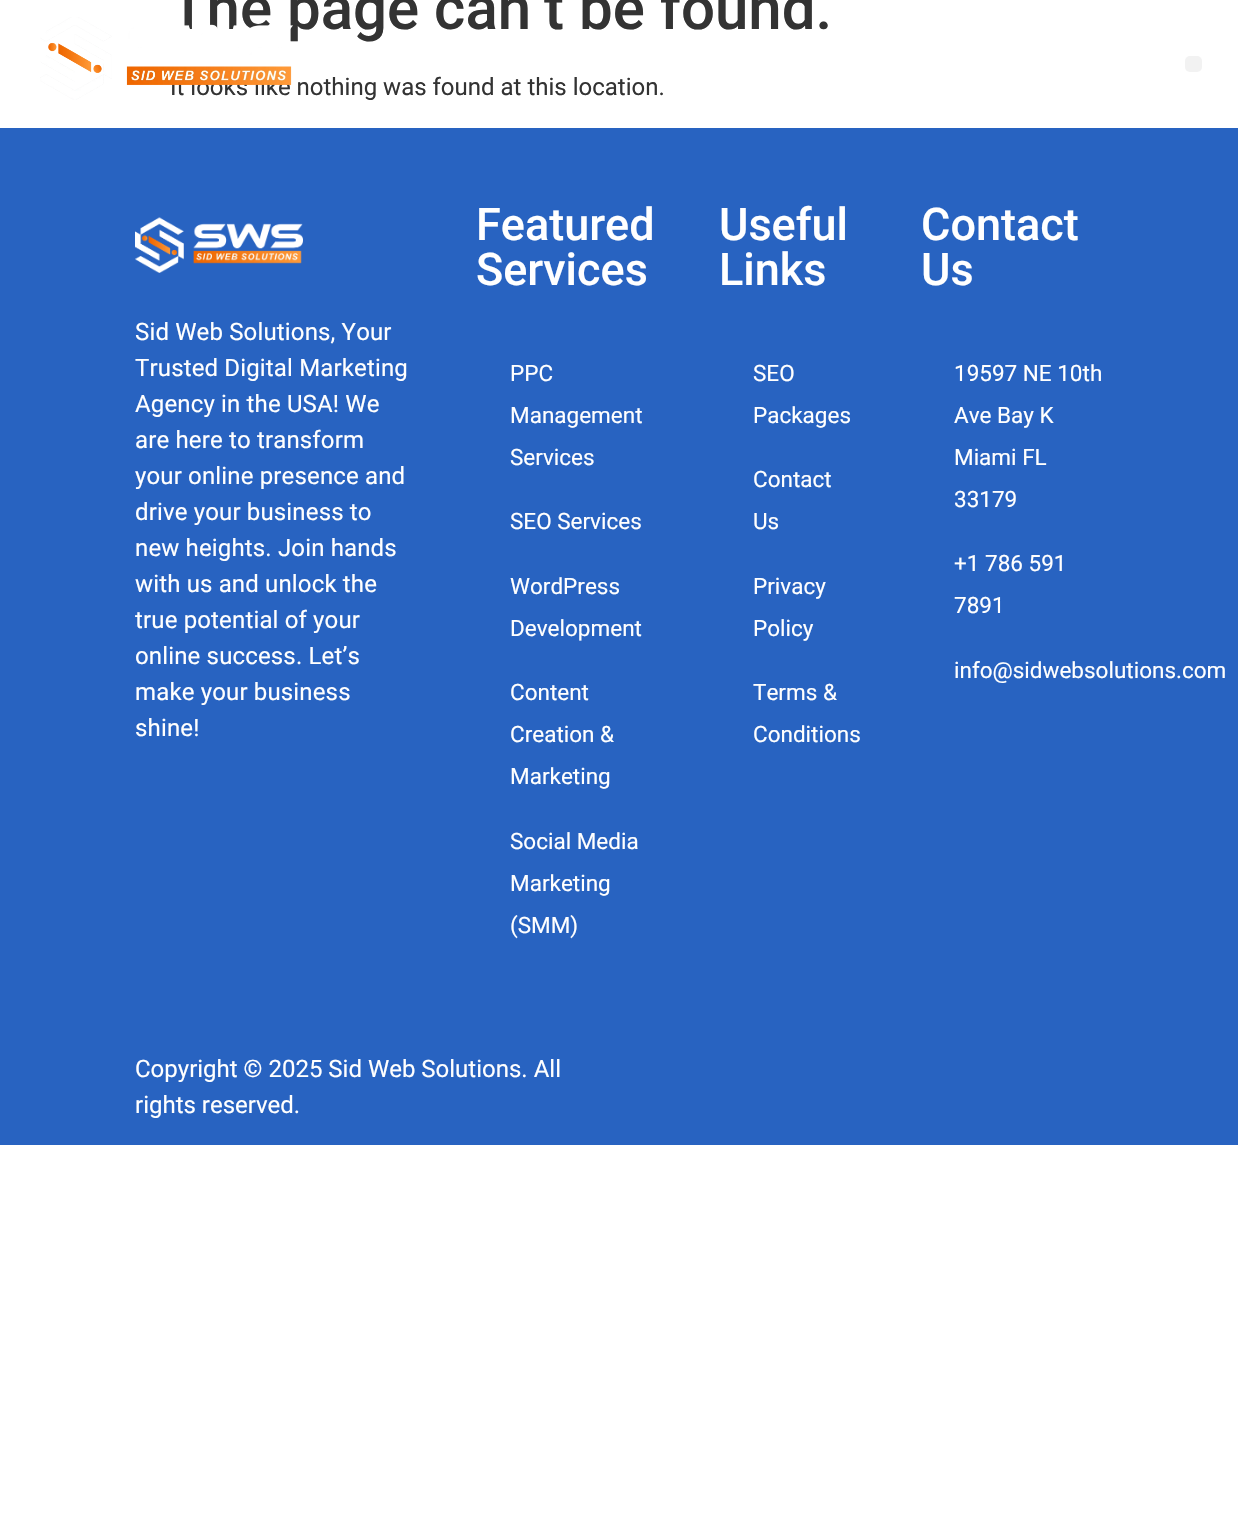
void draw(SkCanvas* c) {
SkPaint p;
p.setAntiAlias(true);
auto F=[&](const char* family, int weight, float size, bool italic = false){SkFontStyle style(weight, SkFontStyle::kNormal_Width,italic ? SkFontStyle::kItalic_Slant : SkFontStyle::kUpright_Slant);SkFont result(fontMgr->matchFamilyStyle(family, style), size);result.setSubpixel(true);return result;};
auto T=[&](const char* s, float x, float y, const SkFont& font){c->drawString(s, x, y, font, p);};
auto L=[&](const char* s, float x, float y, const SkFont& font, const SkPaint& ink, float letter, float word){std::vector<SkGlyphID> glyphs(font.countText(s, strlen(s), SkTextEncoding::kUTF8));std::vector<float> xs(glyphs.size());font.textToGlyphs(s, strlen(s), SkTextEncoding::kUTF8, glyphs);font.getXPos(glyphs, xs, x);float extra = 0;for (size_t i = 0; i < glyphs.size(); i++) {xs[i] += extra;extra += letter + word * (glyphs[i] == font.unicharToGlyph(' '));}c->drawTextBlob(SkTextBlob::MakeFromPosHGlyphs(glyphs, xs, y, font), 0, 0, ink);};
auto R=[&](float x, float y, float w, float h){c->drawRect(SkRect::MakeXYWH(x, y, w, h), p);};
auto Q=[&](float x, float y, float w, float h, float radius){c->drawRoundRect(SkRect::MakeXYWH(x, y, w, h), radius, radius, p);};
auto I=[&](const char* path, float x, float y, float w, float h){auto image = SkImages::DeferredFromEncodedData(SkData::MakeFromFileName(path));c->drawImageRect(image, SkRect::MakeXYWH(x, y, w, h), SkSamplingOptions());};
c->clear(0xffffffff);
auto f1 = F("Roboto",500,60);
p.setColor(0xff333333);
T("The page can’t be found.",170,29,f1);
auto f2 = F("Roboto",400,24);
T("It looks like nothing was found at this location.",170,95,f2);
I("1.png",40,17,253,83);
p.setColor(0xfff2f2f2);
Q(1185,56,17,16,5);
p.setColor(0xff2863c1);
R(0,128,1238,1017);
I("2.png",135,217,168,56);
p.setColor(0xffffffff);
L("Sid Web Solutions, Your",135,340,f2,p,.15,0);
L("Trusted Digital Marketing",135,376,f2,p,.15,0);
L("Agency in the USA! We",135,412,f2,p,.15,0);
L("are here to transform",135,448,f2,p,.15,0);
L("your online presence and",135,484,f2,p,.15,0);
L("drive your business to",135,520,f2,p,.15,0);
L("new heights. Join hands",135,556,f2,p,.15,0);
L("with us and unlock the",135,592,f2,p,.15,0);
L("true potential of your",135,628,f2,p,.15,0);
L("online success. Let’s",135,664,f2,p,.15,0);
L("make your business",135,700,f2,p,.15,0);
L("shine!",135,736,f2,p,.15,0);
auto f3 = F("Roboto",500,45);
T("Featured",476,240,f3);
T("Services",476,285,f3);
auto f4 = F("Roboto",400,22.5);
T("PPC",510,381,f4);
T("Management",510,423,f4);
T("Services",510,465,f4);
T("SEO Services",510,529,f4);
T("WordPress",510,594,f4);
T("Development",510,636,f4);
T("Content",510,700,f4);
T("Creation &",510,742,f4);
T("Marketing",510,784,f4);
T("Social Media",510,849,f4);
T("Marketing",510,891,f4);
T("(SMM)",510,933,f4);
T("Useful",719,240,f3);
T("Links",719,285,f3);
T("SEO",753,381,f4);
T("Packages",753,423,f4);
T("Contact",753,487,f4);
T("Us",753,529,f4);
T("Privacy",753,594,f4);
T("Policy",753,636,f4);
T("Terms &",753,700,f4);
T("Conditions",753,742,f4);
T("Contact",921,240,f3);
T("Us",921,285,f3);
T("19597 NE 10th",954,381,f4);
T("Ave Bay K",954,423,f4);
T("Miami FL",954,465,f4);
T("33179",954,507,f4);
T("+1 786 591",954,571,f4);
T("7891",954,613,f4);
T("info@sidwebsolutions.com",954,678,f4);
T("Copyright © 2025 Sid Web Solutions. All",135,1077,f2);
T("rights reserved.",135,1113,f2);
}
